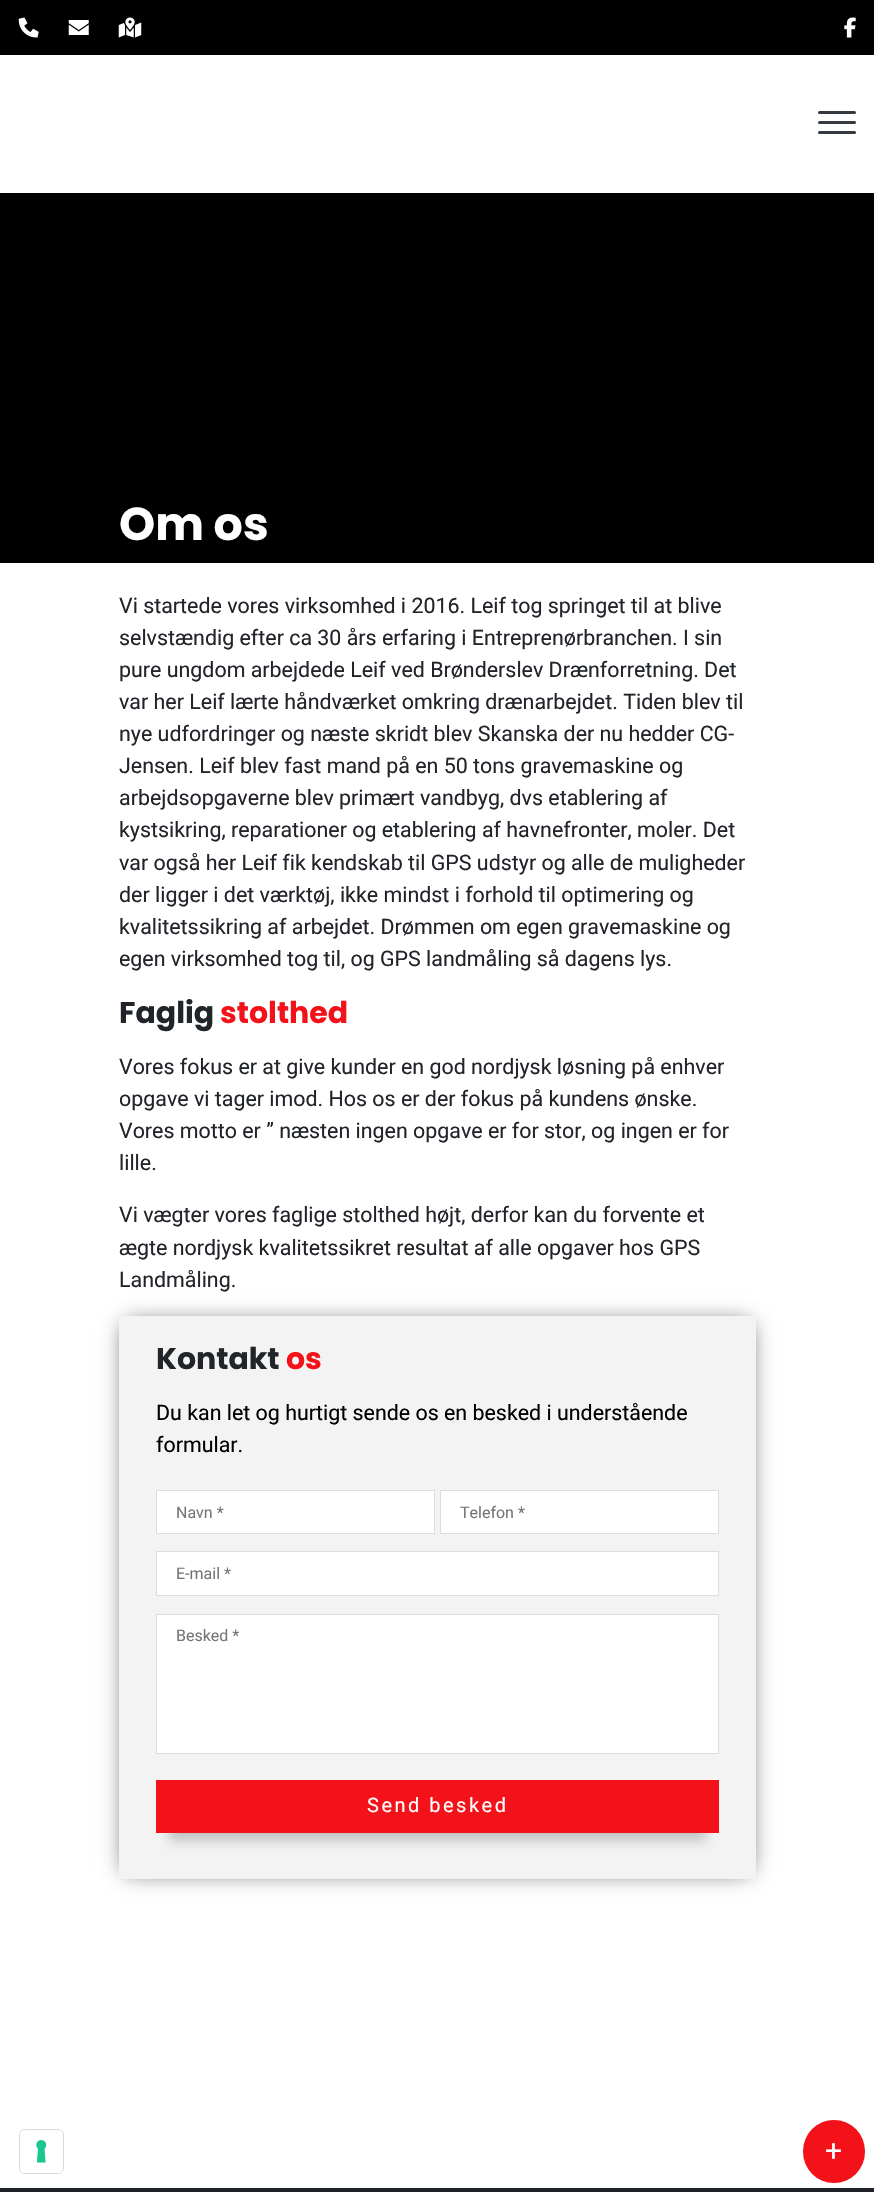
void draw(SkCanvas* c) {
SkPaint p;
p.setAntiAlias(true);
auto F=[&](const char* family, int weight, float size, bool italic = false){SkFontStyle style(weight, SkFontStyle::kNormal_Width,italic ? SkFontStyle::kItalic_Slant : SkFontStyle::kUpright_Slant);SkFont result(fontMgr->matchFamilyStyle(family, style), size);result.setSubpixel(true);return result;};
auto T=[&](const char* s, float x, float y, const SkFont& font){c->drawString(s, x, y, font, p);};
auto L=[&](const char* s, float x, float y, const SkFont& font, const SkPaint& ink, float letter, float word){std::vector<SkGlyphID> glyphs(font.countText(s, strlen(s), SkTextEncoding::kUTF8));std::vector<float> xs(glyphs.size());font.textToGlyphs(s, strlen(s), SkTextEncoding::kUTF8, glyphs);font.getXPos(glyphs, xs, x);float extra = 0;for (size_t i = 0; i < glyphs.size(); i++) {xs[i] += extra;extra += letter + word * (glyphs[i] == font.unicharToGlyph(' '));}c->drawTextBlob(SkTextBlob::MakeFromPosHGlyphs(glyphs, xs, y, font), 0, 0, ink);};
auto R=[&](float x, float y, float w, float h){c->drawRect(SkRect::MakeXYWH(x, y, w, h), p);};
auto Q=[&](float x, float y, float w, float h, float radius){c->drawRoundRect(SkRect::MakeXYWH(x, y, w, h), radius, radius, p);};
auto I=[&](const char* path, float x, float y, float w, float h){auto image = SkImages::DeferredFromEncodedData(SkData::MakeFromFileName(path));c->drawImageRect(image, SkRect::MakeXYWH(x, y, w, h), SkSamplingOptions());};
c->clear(0xffffffff);
p.setStroke(true);
p.setStrokeWidth(1);
p.setColor(0xffd9d9d9);
c->drawRoundRect(SkRect::MakeXYWH(19.5,2129.5,44,44),5.5,5.5,p);
p.setStroke(false);
p.setColor(0xffffffff);
Q(20,2130,43,43,5);
I("1.png",36,2140,11,23);
p.setColor(0xff000000);
R(0,0,874,563);
I("2.png",18,17,21,21);
I("3.png",68,20,21,15);
I("4.png",118,17,24,21);
I("5.png",844,17,12,21);
p.setColor(0xffffffff);
R(0,55,874,138);
p.setColor(0xff343a40);
Q(818,121,38,3,1.5);
Q(818,111,38,3,1.5);
Q(818,131,38,3,1.5);
auto f1 = F("Poppins",700,46);
p.setColor(0xffffffff);
T("Om os",119,540,f1);
auto f2 = F("Roboto",400,21.4);
p.setColor(0xff212429);
T("Vi startede vores virksomhed i 2016. Leif tog springet til at blive",119,613,f2);
T("selvstændig efter ca 30 års erfaring i Entreprenørbranchen. I sin",119,645,f2);
T("pure ungdom arbejdede Leif ved Brønderslev Drænforretning. Det",119,677,f2);
T("var her Leif lærte håndværket omkring drænarbejdet. Tiden blev til",119,709,f2);
T("nye udfordringer og næste skridt blev Skanska der nu hedder CG-",119,741,f2);
T("Jensen. Leif blev fast mand på en 50 tons gravemaskine og",119,773,f2);
T("arbejdsopgaverne blev primært vandbyg, dvs etablering af",119,805,f2);
T("kystsikring, reparationer og etablering af havnefronter, moler. Det",119,837,f2);
T("var også her Leif fik kendskab til GPS udstyr og alle de muligheder",119,870,f2);
T("der ligger i det værktøj, ikke mindst i forhold til optimering og",119,902,f2);
T("kvalitetssikring af arbejdet. Drømmen om egen gravemaskine og",119,934,f2);
T("egen virksomhed tog til, og GPS landmåling så dagens lys.",119,966,f2);
auto f3 = F("Poppins",700,30);
T("Faglig",119,1023,f3);
p.setColor(0xfff3121a);
T("stolthed",220,1023,f3);
p.setColor(0xff212429);
T("Vores fokus er at give kunder en god nordjysk løsning på enhver",119,1074,f2);
T("opgave vi tager imod. Hos os er der fokus på kundens ønske.",119,1106,f2);
T("Vores motto er ” næsten ingen opgave er for stor, og ingen er for",119,1138,f2);
T("lille.",119,1170,f2);
T("Vi vægter vores faglige stolthed højt, derfor kan du forvente et",119,1222,f2);
T("ægte nordjysk kvalitetssikret resultat af alle opgaver hos GPS",119,1255,f2);
T("Landmåling.",119,1287,f2);
p.setColor(0xbf000000);
p.setMaskFilter(SkMaskFilter::MakeBlur(kNormal_SkBlurStyle, 11));
c->drawRect(SkRect::MakeXYWH(126,1324,623,547),p);
p.setMaskFilter(nullptr);
p.setColor(0xfff3f3f3);
R(119,1316,637,563);
p.setColor(0xff212429);
T("Kontakt",156,1369,f3);
p.setColor(0xfff3121a);
T("os",286,1369,f3);
p.setColor(0xff000000);
T("Du kan let og hurtigt sende os en besked i understående",156,1420,f2);
T("formular.",156,1452,f2);
p.setColor(0xffffffff);
c->drawRect(SkRect::MakeXYWH(156.5,1490.5,278,43),p);
p.setStroke(true);
p.setColor(0xffdddddd);
c->drawRect(SkRect::MakeXYWH(156.5,1490.5,278,43),p);
auto f4 = F("Roboto",400,16);
p.setStroke(false);
p.setColor(0xff757575);
T("Navn *",176,1518,f4);
p.setColor(0xffffffff);
c->drawRect(SkRect::MakeXYWH(440.5,1490.5,278,43),p);
p.setStroke(true);
p.setColor(0xffdddddd);
c->drawRect(SkRect::MakeXYWH(440.5,1490.5,278,43),p);
p.setStroke(false);
p.setColor(0xff757575);
T("Telefon *",460,1518,f4);
p.setColor(0xffffffff);
c->drawRect(SkRect::MakeXYWH(156.5,1551.5,562,44),p);
p.setStroke(true);
p.setColor(0xffdddddd);
c->drawRect(SkRect::MakeXYWH(156.5,1551.5,562,44),p);
p.setStroke(false);
p.setColor(0xff757575);
T("E-mail *",176,1579,f4);
p.setColor(0xffffffff);
c->drawRect(SkRect::MakeXYWH(156.5,1614.5,562,139),p);
p.setStroke(true);
p.setColor(0xffdddddd);
c->drawRect(SkRect::MakeXYWH(156.5,1614.5,562,139),p);
p.setStroke(false);
p.setColor(0xff757575);
T("Besked *",176,1641,f4);
p.setColor(0x33000000);
p.setMaskFilter(SkMaskFilter::MakeBlur(kNormal_SkBlurStyle, 6));
c->drawRect(SkRect::MakeXYWH(169,1814,537,27),p);
p.setMaskFilter(nullptr);
p.setColor(0xfff3121a);
R(156,1780,563,53);
auto f5 = F("Roboto",400,20);
p.setColor(0xffffffff);
L("Send besked",367,1812,f5,p,2.5,0);
p.setColor(0xfff3121a);
Q(803,2120,62,63,31);
auto f6 = F("Roboto",400,30);
p.setColor(0xffffffff);
T("+",825,2161,f6);
p.setColor(0xff202229);
R(0,2188,874,4);
}
